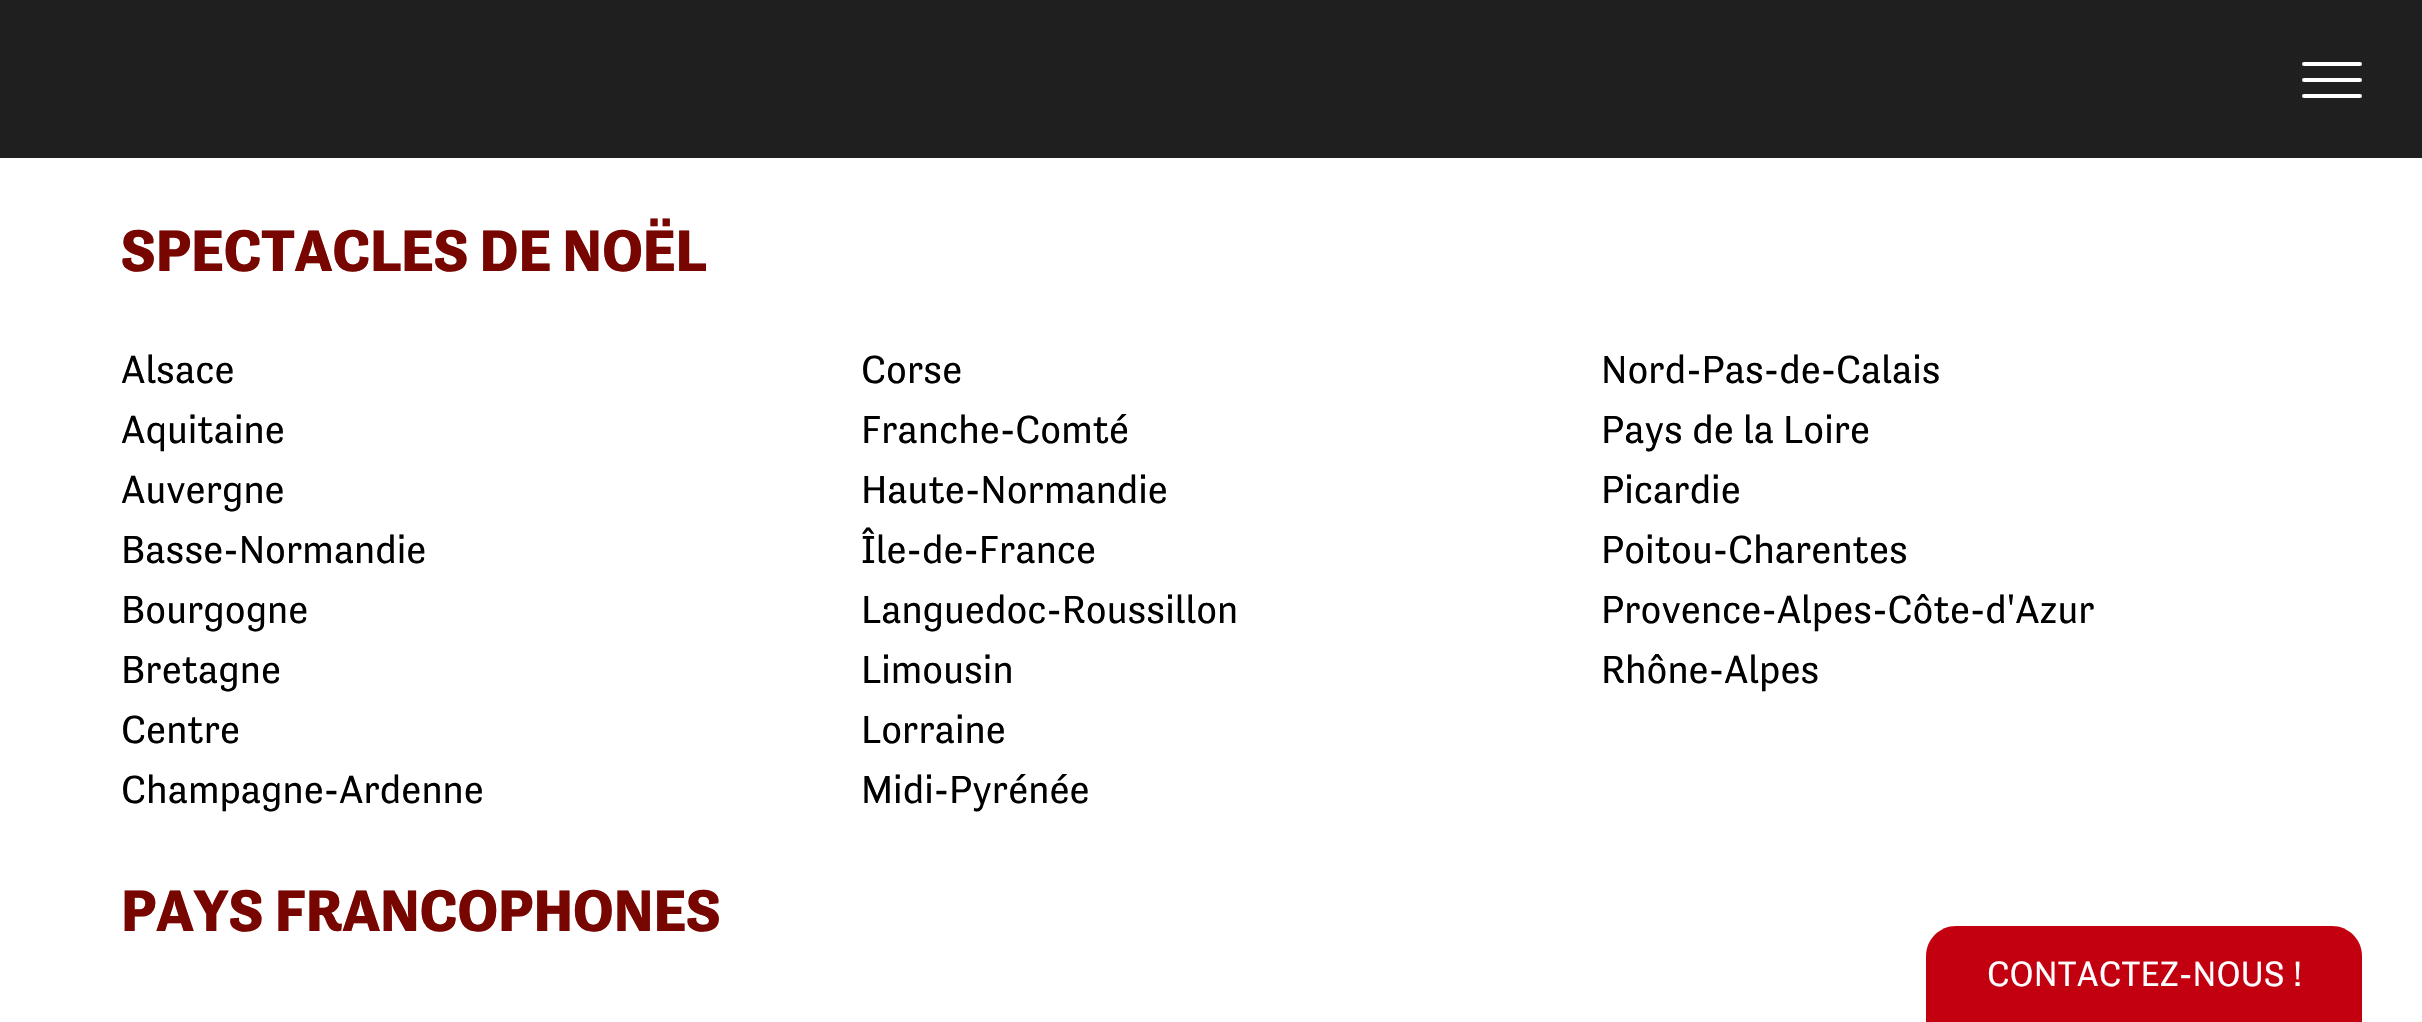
void draw(SkCanvas* c) {
SkPaint p;
p.setAntiAlias(true);
auto F=[&](const char* family, int weight, float size, bool italic = false){SkFontStyle style(weight, SkFontStyle::kNormal_Width,italic ? SkFontStyle::kItalic_Slant : SkFontStyle::kUpright_Slant);SkFont result(fontMgr->matchFamilyStyle(family, style), size);result.setSubpixel(true);return result;};
auto T=[&](const char* s, float x, float y, const SkFont& font){c->drawString(s, x, y, font, p);};
auto R=[&](float x, float y, float w, float h){c->drawRect(SkRect::MakeXYWH(x, y, w, h), p);};
auto Q=[&](float x, float y, float w, float h, float radius){c->drawRoundRect(SkRect::MakeXYWH(x, y, w, h), radius, radius, p);};
auto P=[&](const char* data, bool evenOdd = false){SkPath result = *SkParsePath::FromSVGString(data);if (evenOdd) result.setFillType(SkPathFillType::kEvenOdd);return result;};
c->clear(0xffffffff);
p.setColor(0xff1f1f1f);
R(0,0,2422,158);
p.setColor(0xffffffff);
Q(2302,78,60,4,2);
Q(2302,62,60,4,2);
Q(2302,94,60,4,2);
auto f1 = F("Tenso",700,60);
p.setColor(0xff770500);
T("SPECTACLES DE NOËL",121,271,f1);
auto f2 = F("Tenso",400,40);
p.setColor(0xff000000);
T("Alsace",121,383,f2);
T("Corse",861,383,f2);
T("Nord-Pas-de-Calais",1601,383,f2);
T("Aquitaine",121,443,f2);
T("Franche-Comté",861,443,f2);
T("Pays de la Loire",1601,443,f2);
T("Auvergne",121,503,f2);
T("Haute-Normandie",861,503,f2);
T("Picardie",1601,503,f2);
T("Basse-Normandie",121,563,f2);
T("Île-de-France",861,563,f2);
T("Poitou-Charentes",1601,563,f2);
T("Bourgogne",121,623,f2);
T("Languedoc-Roussillon",861,623,f2);
T("Provence-Alpes-Côte-d'Azur",1601,623,f2);
T("Bretagne",121,683,f2);
T("Limousin",861,683,f2);
T("Rhône-Alpes",1601,683,f2);
T("Centre",121,743,f2);
T("Lorraine",861,743,f2);
T("Champagne-Ardenne",121,803,f2);
T("Midi-Pyrénée",861,803,f2);
p.setColor(0xff770500);
T("PAYS FRANCOPHONES",121,931,f1);
p.setColor(0xffc30010);
c->drawPath(P("M1956 926h376c16.5 0 30 13.5 30 30v66h-436v-66c0-16.5 13.5-30 30-30z"),p);
auto f3 = F("Tenso",400,36);
p.setColor(0xffffffff);
T("CONTACTEZ-NOUS !",1987,986,f3);
}
